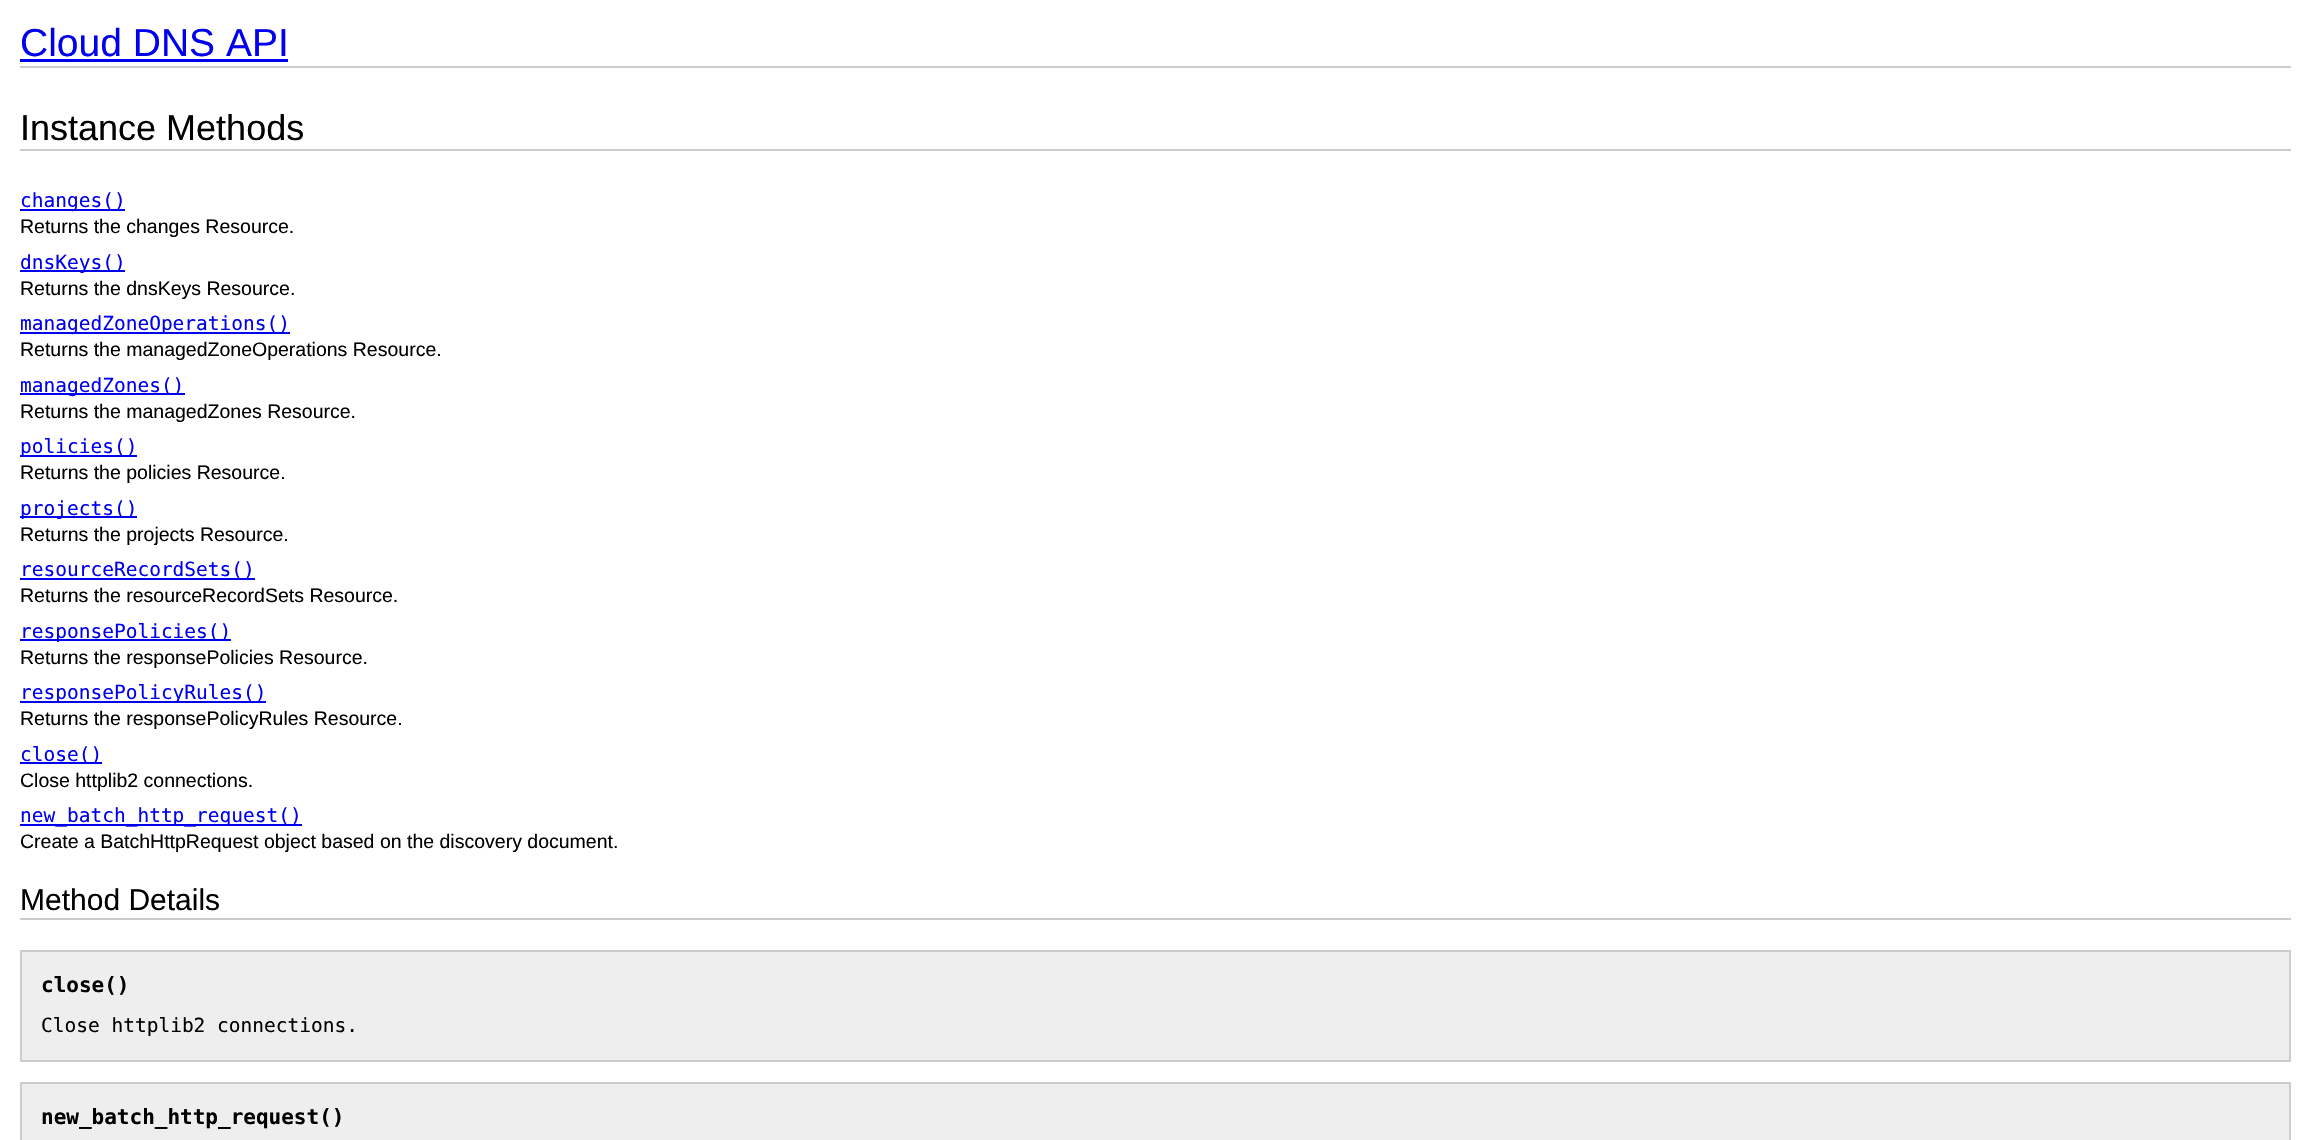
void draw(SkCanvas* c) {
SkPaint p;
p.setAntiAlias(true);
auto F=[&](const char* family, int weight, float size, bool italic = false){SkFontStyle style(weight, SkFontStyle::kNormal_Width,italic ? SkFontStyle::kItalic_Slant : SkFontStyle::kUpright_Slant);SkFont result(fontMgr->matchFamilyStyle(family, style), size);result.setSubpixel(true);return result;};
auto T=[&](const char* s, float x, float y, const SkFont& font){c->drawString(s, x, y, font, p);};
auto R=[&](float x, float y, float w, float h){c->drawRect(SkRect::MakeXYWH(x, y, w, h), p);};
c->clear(0xffffffff);
p.setColor(0xffcccccc);
R(20,66,2271,2);
auto f1 = F("Liberation Sans",400,39);
p.setColor(0xff0000ee);
T("Cloud DNS API",20,56,f1);
R(20,59,268,3);
p.setColor(0xffcccccc);
R(20,149,2271,2);
auto f2 = F("Liberation Sans",400,36);
p.setColor(0xff000000);
T("Instance Methods",20,140,f2);
p.setColor(0xff0000ee);
R(20,209,105,2);
auto f3 = F("DejaVu Sans Mono",400,19.5);
T("changes()",20,207,f3);
auto f4 = F("Liberation Sans",400,19.5);
p.setColor(0xff000000);
T("Returns the changes Resource.",20,233,f4);
p.setColor(0xff0000ee);
R(20,270,105,2);
T("dnsKeys()",20,269,f3);
p.setColor(0xff000000);
T("Returns the dnsKeys Resource.",20,295,f4);
p.setColor(0xff0000ee);
R(20,332,270,2);
T("managedZoneOperations()",20,330,f3);
p.setColor(0xff000000);
T("Returns the managedZoneOperations Resource.",20,356,f4);
p.setColor(0xff0000ee);
R(20,393,165,2);
T("managedZones()",20,392,f3);
p.setColor(0xff000000);
T("Returns the managedZones Resource.",20,418,f4);
p.setColor(0xff0000ee);
R(20,455,117,2);
T("policies()",20,453,f3);
p.setColor(0xff000000);
T("Returns the policies Resource.",20,479,f4);
p.setColor(0xff0000ee);
R(20,516,117,2);
T("projects()",20,515,f3);
p.setColor(0xff000000);
T("Returns the projects Resource.",20,541,f4);
p.setColor(0xff0000ee);
R(20,578,235,2);
T("resourceRecordSets()",20,576,f3);
p.setColor(0xff000000);
T("Returns the resourceRecordSets Resource.",20,602,f4);
p.setColor(0xff0000ee);
R(20,639,211,2);
T("responsePolicies()",20,638,f3);
p.setColor(0xff000000);
T("Returns the responsePolicies Resource.",20,664,f4);
p.setColor(0xff0000ee);
R(20,701,246,2);
T("responsePolicyRules()",20,699,f3);
p.setColor(0xff000000);
T("Returns the responsePolicyRules Resource.",20,725,f4);
p.setColor(0xff0000ee);
R(20,762,82,2);
T("close()",20,761,f3);
p.setColor(0xff000000);
T("Close httplib2 connections.",20,787,f4);
p.setColor(0xff0000ee);
R(20,824,282,2);
T("new_batch_http_request()",20,822,f3);
p.setColor(0xff000000);
T("Create a BatchHttpRequest object based on the discovery document.",20,848,f4);
p.setColor(0xffcccccc);
R(20,918,2271,2);
auto f5 = F("Liberation Sans",400,30);
p.setColor(0xff000000);
T("Method Details",20,910,f5);
p.setColor(0xffeeeeee);
c->drawRect(SkRect::MakeXYWH(21,951,2269,110),p);
p.setStroke(true);
p.setStrokeWidth(2);
p.setColor(0xffcccccc);
c->drawRect(SkRect::MakeXYWH(21,951,2269,110),p);
auto f6 = F("DejaVu Sans Mono",700,21);
p.setStroke(false);
p.setColor(0xff000000);
T("close()",41,992,f6);
T("Close httplib2 connections.",41,1032,f3);
p.setColor(0xffeeeeee);
c->drawRect(SkRect::MakeXYWH(21,1083,2269,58),p);
p.setStroke(true);
p.setColor(0xffcccccc);
c->drawRect(SkRect::MakeXYWH(21,1083,2269,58),p);
p.setStroke(false);
p.setColor(0xff000000);
T("new_batch_http_request()",41,1124,f6);
}
